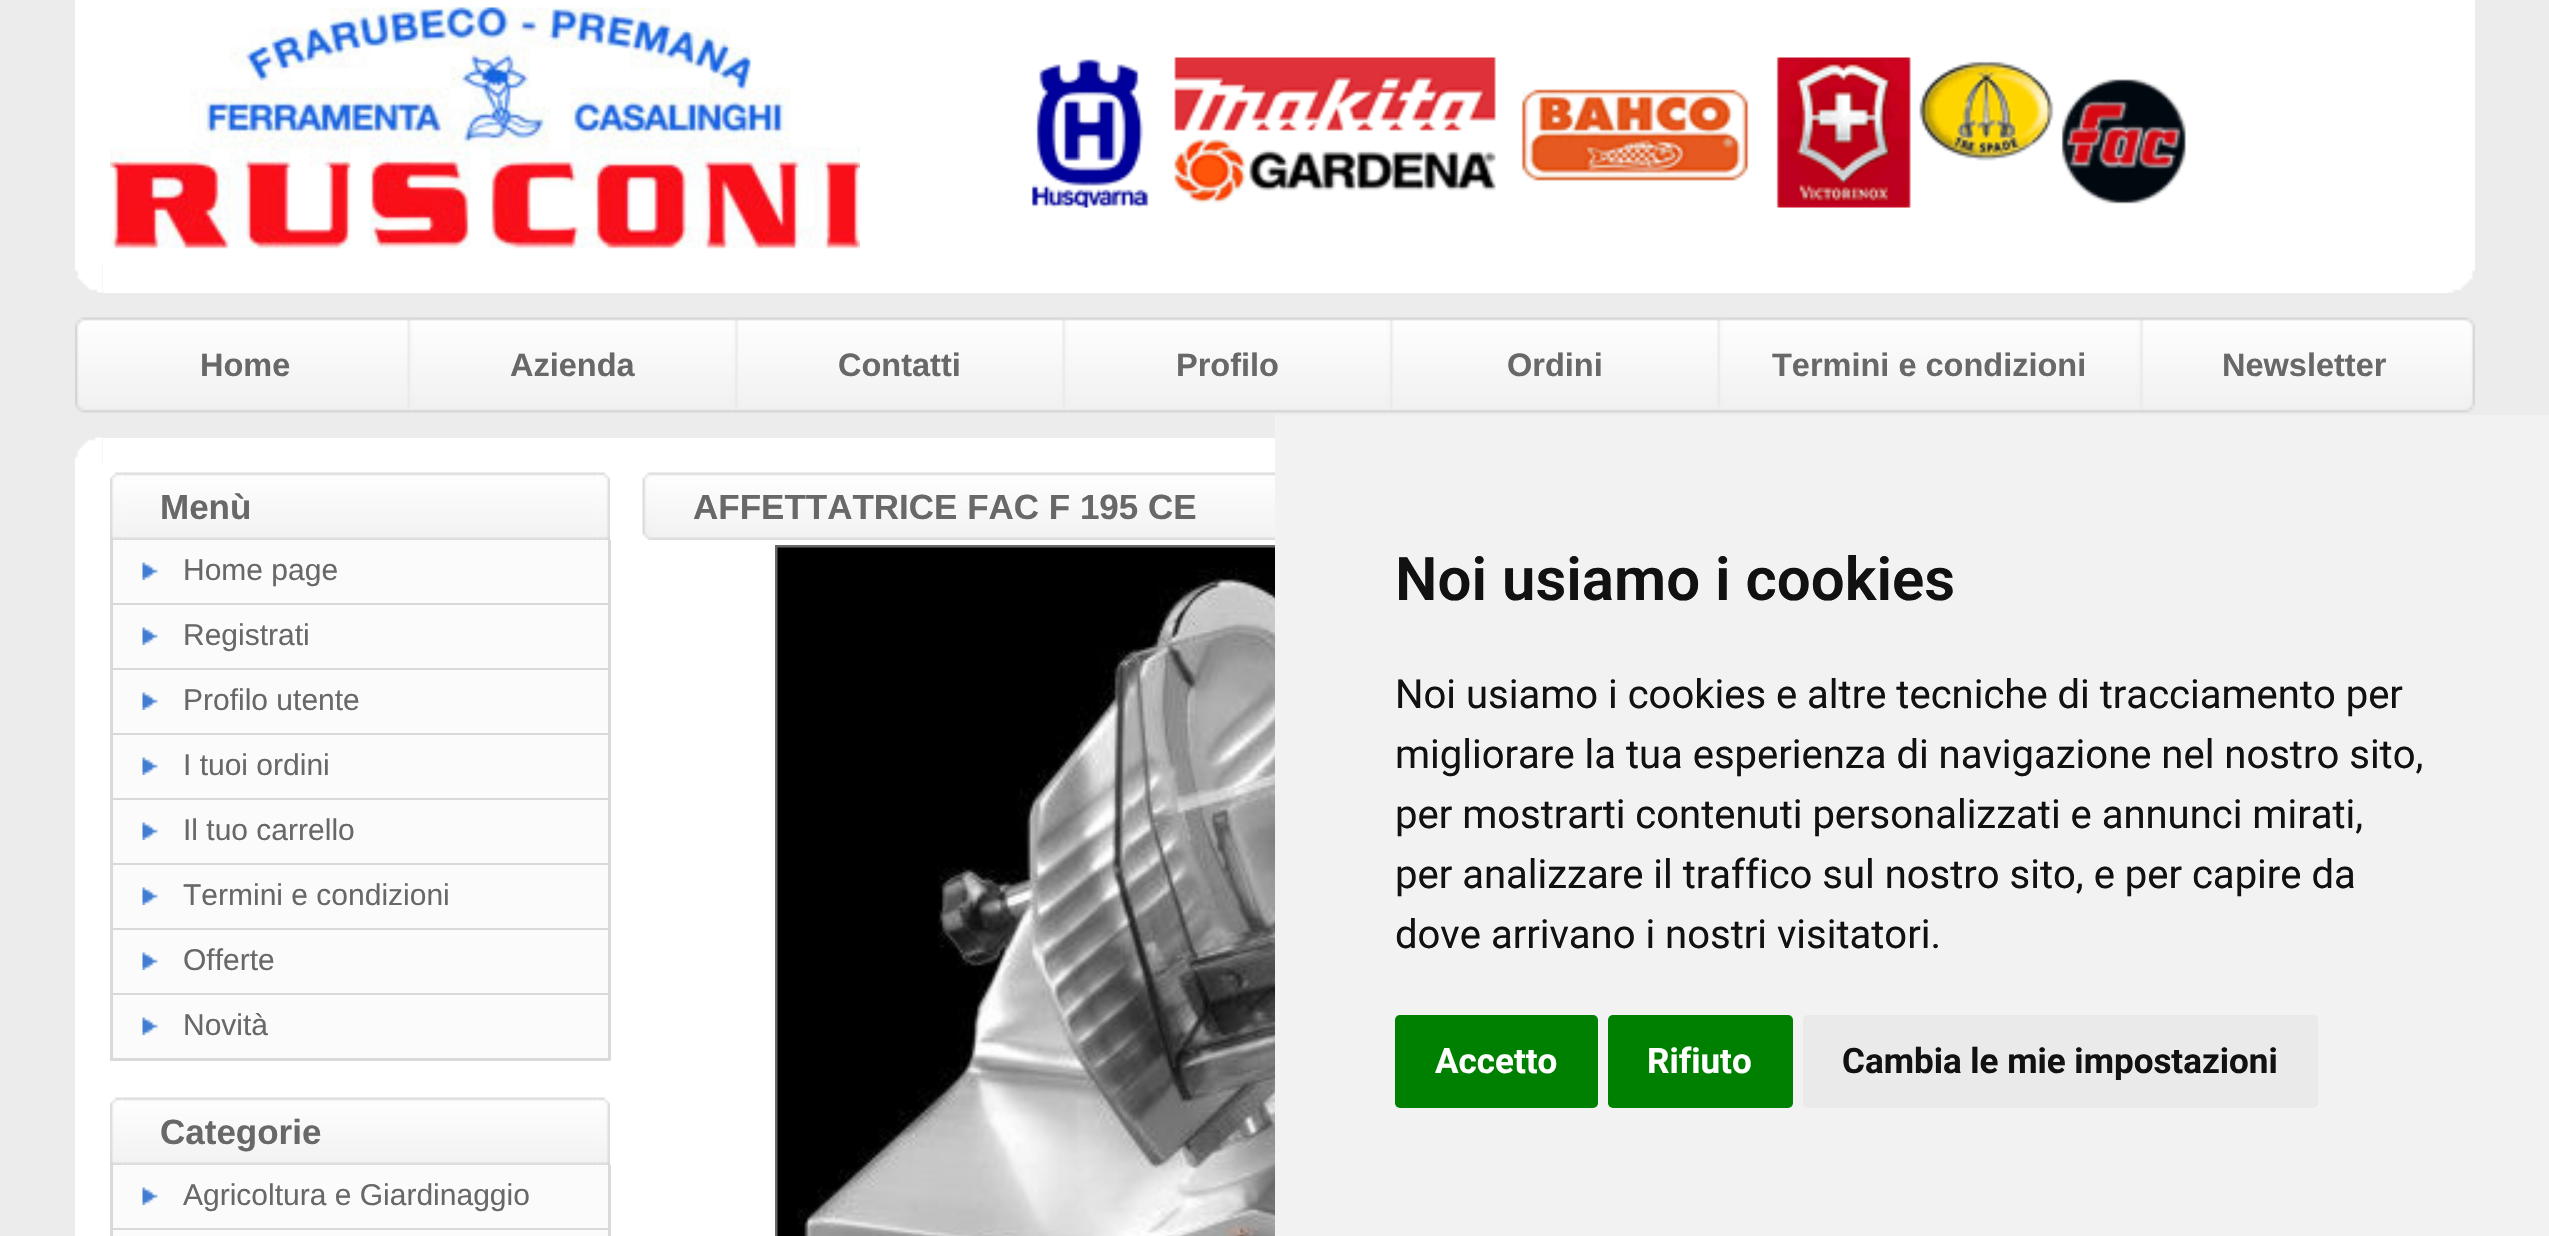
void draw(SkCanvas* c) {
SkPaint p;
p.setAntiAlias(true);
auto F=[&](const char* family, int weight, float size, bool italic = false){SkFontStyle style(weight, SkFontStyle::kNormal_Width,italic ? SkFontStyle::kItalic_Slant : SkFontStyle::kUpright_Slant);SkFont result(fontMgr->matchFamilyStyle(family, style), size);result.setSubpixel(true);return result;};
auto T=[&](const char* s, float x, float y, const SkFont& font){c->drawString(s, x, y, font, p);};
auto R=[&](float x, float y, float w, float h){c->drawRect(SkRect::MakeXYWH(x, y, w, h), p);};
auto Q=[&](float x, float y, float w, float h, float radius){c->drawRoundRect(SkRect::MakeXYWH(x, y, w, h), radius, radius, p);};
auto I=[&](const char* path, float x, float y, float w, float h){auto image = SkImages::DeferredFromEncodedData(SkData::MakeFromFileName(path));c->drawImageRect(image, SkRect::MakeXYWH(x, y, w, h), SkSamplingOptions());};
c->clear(0xffececec);
p.setColor(0xffffffff);
R(75,0,2400,265);
I("1.png",110,7,750,242);
I("2.png",1031,57,1155,151);
I("3.png",75,265,28,28);
R(103,265,2345,28);
I("4.png",2448,265,27,28);
I("5.png",75,317,10,96);
I("6.png",85,317,320,96);
auto f1 = F("Liberation Sans",700,32.5);
p.setColor(0xff686868);
T("Home",200,376,f1);
I("7.png",405,317,8,96);
I("8.png",412,317,321,96);
T("Azienda",510,376,f1);
I("9.png",732,317,8,96);
I("6.png",740,317,320,96);
T("Contatti",838,376,f1);
I("7.png",1060,317,8,96);
I("8.png",1067,317,321,96);
T("Profilo",1176,376,f1);
I("9.png",1387,317,8,96);
I("6.png",1395,317,320,96);
T("Ordini",1507,376,f1);
I("10.png",1715,317,8,96);
I("11.png",1722,317,416,96);
T("Termini e condizioni",1772,376,f1);
I("9.png",2137,317,8,96);
I("6.png",2145,317,320,96);
T("Newsletter",2222,376,f1);
I("12.png",2465,317,10,96);
I("13.png",75,437,28,28);
p.setColor(0xffffffff);
R(103,438,1172,27);
R(75,465,1200,771);
I("15.png",122,472,476,68);
I("14.png",110,472,13,68);
auto f2 = F("Liberation Sans",700,35);
p.setColor(0xff686868);
T("Menù",160,519,f2);
I("16.png",597,472,13,68);
p.setColor(0xfffbfbfb);
R(113,540,495,63);
p.setColor(0xffd9d9d9);
R(608,540,3,520);
R(110,603,500,2);
R(110,540,3,65);
I("17.png",142,562,16,18);
auto f3 = F("Liberation Sans",400,30);
p.setColor(0xff686868);
T("Home page",183,580,f3);
p.setColor(0xfffbfbfb);
R(113,605,495,63);
p.setColor(0xffd9d9d9);
R(110,668,500,2);
R(110,605,3,65);
I("17.png",142,627,16,18);
p.setColor(0xff686868);
T("Registrati",183,645,f3);
p.setColor(0xfffbfbfb);
R(113,670,495,63);
p.setColor(0xffd9d9d9);
R(110,733,500,2);
R(110,670,3,65);
I("17.png",142,692,16,18);
p.setColor(0xff686868);
T("Profilo utente",183,710,f3);
p.setColor(0xfffbfbfb);
R(113,735,495,63);
p.setColor(0xffd9d9d9);
R(110,798,500,2);
R(110,735,3,65);
I("17.png",142,757,16,18);
p.setColor(0xff686868);
T("I tuoi ordini",183,775,f3);
p.setColor(0xfffbfbfb);
R(113,800,495,63);
p.setColor(0xffd9d9d9);
R(110,863,500,2);
R(110,800,3,65);
I("17.png",142,822,16,18);
p.setColor(0xff686868);
T("Il tuo carrello",183,840,f3);
p.setColor(0xfffbfbfb);
R(113,865,495,63);
p.setColor(0xffd9d9d9);
R(110,928,500,2);
R(110,865,3,65);
I("17.png",142,887,16,18);
p.setColor(0xff686868);
T("Termini e condizioni",183,905,f3);
p.setColor(0xfffbfbfb);
R(113,930,495,63);
p.setColor(0xffd9d9d9);
R(110,993,500,2);
R(110,930,3,65);
I("17.png",142,952,16,18);
p.setColor(0xff686868);
T("Offerte",183,970,f3);
p.setColor(0xfffbfbfb);
R(113,995,495,63);
p.setColor(0xffd9d9d9);
R(110,1058,500,3);
R(110,995,3,65);
I("17.png",142,1017,16,18);
p.setColor(0xff686868);
T("Novità",183,1035,f3);
I("15.png",122,1097,476,68);
I("14.png",110,1097,13,68);
T("Categorie",160,1144,f2);
I("16.png",597,1097,13,68);
p.setColor(0xfffbfbfb);
R(113,1165,495,63);
p.setColor(0xffd9d9d9);
R(608,1165,3,65);
R(110,1228,500,2);
R(110,1165,3,65);
I("17.png",142,1187,16,18);
p.setColor(0xff686868);
T("Agricoltura e Giardinaggio",183,1205,f3);
p.setColor(0xfffbfbfb);
R(110,1230,500,6);
p.setColor(0xffd9d9d9);
R(608,1230,3,6);
R(110,1230,3,6);
I("18.png",642,472,13,68);
I("19.png",655,472,620,68);
p.setColor(0xff686868);
T("AFFETTATRICE FAC F 195 CE",693,519,f2);
p.setStroke(true);
p.setStrokeWidth(3);
c->drawRect(SkRect::MakeXYWH(776.5,546.5,1002,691),p);
I("20.png",777,547,498,689);
p.setStroke(false);
p.setColor(0xfff2f2f2);
R(1275,415,1274,821);
auto f4 = F("Roboto",600,60);
p.setColor(0xff111111);
T("Noi usiamo i cookies",1395,600,f4);
auto f5 = F("Roboto",400,40);
T("Noi usiamo i cookies e altre tecniche di tracciamento per",1395,708,f5);
T("migliorare la tua esperienza di navigazione nel nostro sito,",1395,768,f5);
T("per mostrarti contenuti personalizzati e annunci mirati,",1395,828,f5);
T("per analizzare il traffico sul nostro sito, e per capire da",1395,888,f5);
T("dove arrivano i nostri visitatori.",1395,948,f5);
p.setColor(0xff008000);
Q(1395,1015,203,93,5);
auto f6 = F("Roboto",700,35);
p.setColor(0xffffffff);
T("Accetto",1435,1073,f6);
p.setColor(0xff008000);
Q(1608,1015,185,93,5);
p.setColor(0xffffffff);
T("Rifiuto",1647,1073,f6);
p.setColor(0xffeaeaea);
Q(1803,1015,515,93,5);
p.setColor(0xff111111);
T("Cambia le mie impostazioni",1842,1073,f6);
}
